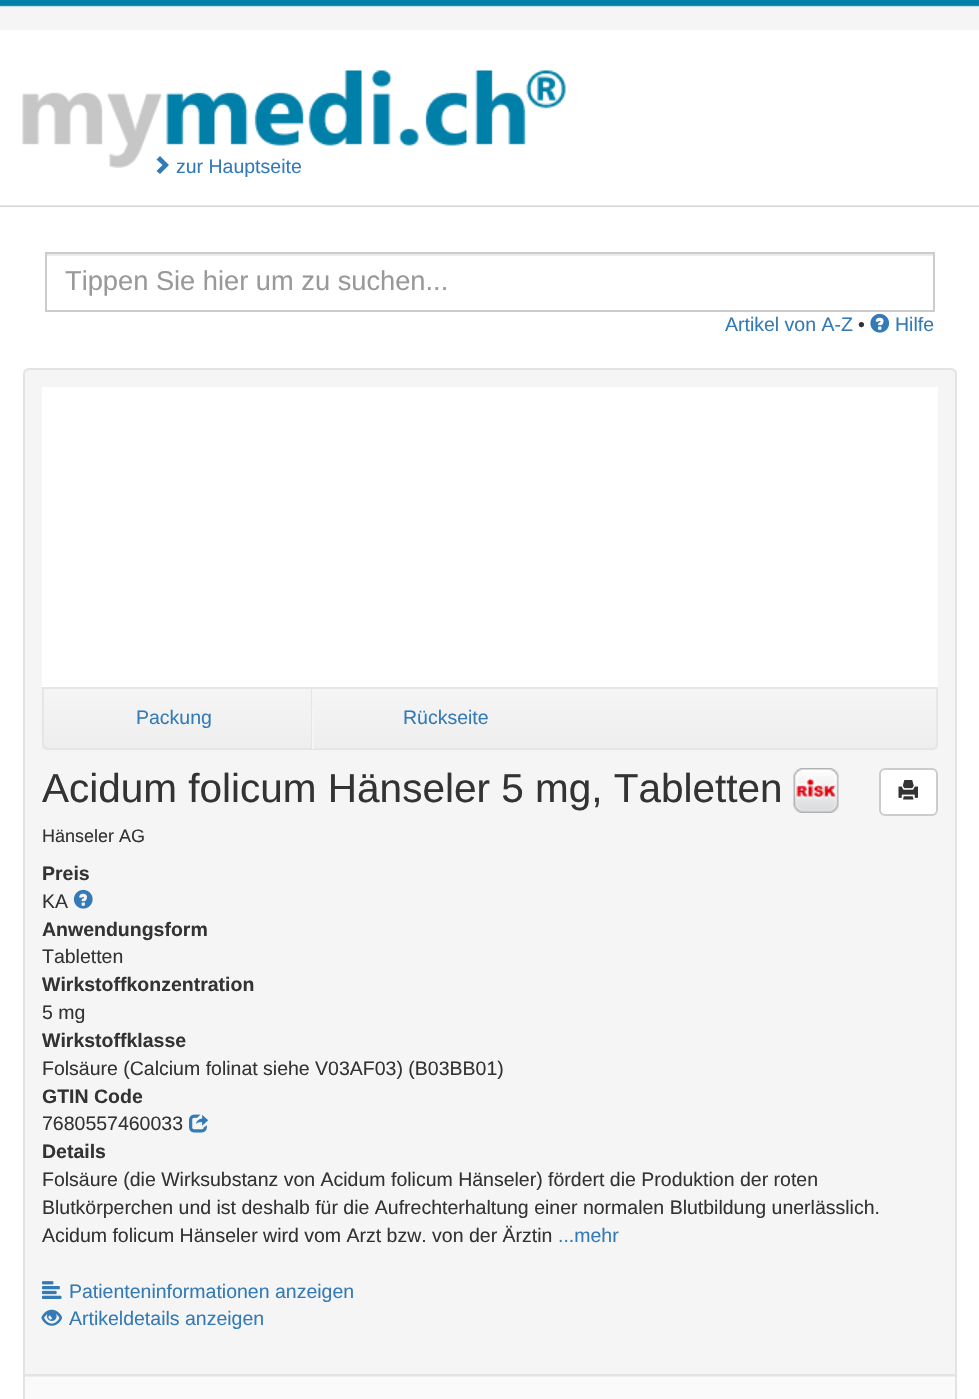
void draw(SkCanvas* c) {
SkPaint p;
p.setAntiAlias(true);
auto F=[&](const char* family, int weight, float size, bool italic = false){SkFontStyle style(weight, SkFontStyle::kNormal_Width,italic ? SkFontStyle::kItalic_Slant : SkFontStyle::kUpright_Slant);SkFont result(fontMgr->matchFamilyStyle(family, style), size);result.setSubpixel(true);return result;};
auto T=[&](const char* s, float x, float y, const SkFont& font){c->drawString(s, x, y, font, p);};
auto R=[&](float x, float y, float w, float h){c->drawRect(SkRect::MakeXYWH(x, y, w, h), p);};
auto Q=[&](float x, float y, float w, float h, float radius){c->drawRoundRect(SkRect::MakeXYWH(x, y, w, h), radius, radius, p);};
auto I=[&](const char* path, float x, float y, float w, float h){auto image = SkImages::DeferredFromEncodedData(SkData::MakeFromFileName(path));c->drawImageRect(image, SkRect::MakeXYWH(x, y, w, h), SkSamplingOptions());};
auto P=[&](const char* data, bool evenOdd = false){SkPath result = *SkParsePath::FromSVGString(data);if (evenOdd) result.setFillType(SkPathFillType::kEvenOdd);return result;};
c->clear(0xffffffff);
I("1.png",0,0,979,207);
I("2.png",22,70,544,98);
p.setColor(0xff337ab7);
c->drawPath(P("M169 165l-9 9l-3.5-3l6-6l-6-5.5l3.5-3.5z"),p);
auto f1 = F("Liberation Sans",400,19.5);
T("zur Hauptseite",176,173,f1);
p.setColor(0xffececec);
R(47,254,886,2);
p.setStroke(true);
p.setStrokeWidth(2);
p.setColor(0xffcccccc);
c->drawRect(SkRect::MakeXYWH(46,253,888,58),p);
auto f2 = F("Liberation Sans",400,27.25);
p.setStroke(false);
p.setColor(0xff999999);
T("Tippen Sie hier um zu suchen...",65,290,f2);
p.setColor(0xff337ab7);
T("Artikel von A-Z",725,331,f1);
p.setColor(0xff333333);
T("•",858,331,f1);
I("3.png",870,313,20,20);
p.setColor(0xff337ab7);
T("Hilfe",895,331,f1);
p.setColor(0xfff5f5f5);
Q(23,368,934,1012,6);
p.setColor(0xffe9e9e9);
c->drawPath(P("M28 370h923c2 0 5 3 5 5c0-3-2-6-5-6h-922c-3 0-5 3-5 6c0-2 2-5 4-5z"),p);
p.setStroke(true);
p.setColor(0xffe3e3e3);
c->drawRoundRect(SkRect::MakeXYWH(24,369,932,1010),5,5,p);
p.setStroke(false);
p.setColor(0xffffffff);
R(42,387,896,300);
c->save();
c->clipPath(P("M42 687h896v57c0 3.5-2.5 6-6 6h-884c-3.5 0-6-2.5-6-6z"),true);
{
const SkColor colors[] = {0xfff5f5f5,0xffeeeeee};
const float stops[] = {0,1};
const SkPoint ends[] = {{490,688}, {490,749}};
p.setShader(SkGradientShader::MakeLinear(ends, colors, stops, 2, SkTileMode::kClamp));
p.setAlpha(255);
}
R(42,689,896,60);
c->restore();
p.setStroke(true);
p.setShader(nullptr);
p.setColor(0xffe5e5e5);
c->drawPath(P("M43 688h894v56c0 3-2 5-5 5h-884c-3 0-5-2-5-5z"),p);
p.setStroke(false);
R(311,689,1,60);
p.setColor(0xff337ab7);
T("Packung",136,724,f1);
p.setColor(0xfff5f5f5);
R(312,710,2,39);
p.setColor(0xff337ab7);
T("Rückseite",403,724,f1);
auto f3 = F("Liberation Sans",400,40.5);
p.setColor(0xff333333);
T("Acidum folicum Hänseler 5 mg, Tabletten",42,802,f3);
I("4.png",793,768,46,45);
p.setColor(0xffffffff);
c->drawRoundRect(SkRect::MakeXYWH(880,769,57,46),5,5,p);
p.setStroke(true);
p.setColor(0xffcccccc);
c->drawRoundRect(SkRect::MakeXYWH(880,769,57,46),5,5,p);
I("5.png",898,780,20,20);
auto f4 = F("Liberation Sans",400,18);
p.setStroke(false);
p.setColor(0xff333333);
T("Hänseler AG",42,842,f4);
auto f5 = F("Liberation Sans",700,19.5);
T("Preis",42,880,f5);
T("KA",42,908,f1);
I("6.png",73,889,20,20);
T("Anwendungsform",42,936,f5);
T("Tabletten",42,963,f1);
T("Wirkstoffkonzentration",42,991,f5);
T("5 mg",42,1019,f1);
T("Wirkstoffklasse",42,1047,f5);
T("Folsäure (Calcium folinat siehe V03AF03) (B03BB01)",42,1075,f1);
T("GTIN Code",42,1103,f5);
T("7680557460033",42,1130,f1);
I("7.png",189,1114,19,19);
T("Details",42,1158,f5);
T("Folsäure (die Wirksubstanz von Acidum folicum Hänseler) fördert die Produktion der roten",42,1186,f1);
T("Blutkörperchen und ist deshalb für die Aufrechterhaltung einer normalen Blutbildung unerlässlich.",42,1214,f1);
T("Acidum folicum Hänseler wird vom Arzt bzw. von der Ärztin",42,1242,f1);
p.setColor(0xff337ab7);
T("...mehr",558,1242,f1);
I("8.png",42,1281,20,18);
T("Patienteninformationen anzeigen",69,1298,f1);
I("9.png",41,1309,22,17);
T("Artikeldetails anzeigen",69,1325,f1);
p.setColor(0xfffafafa);
R(25,1377,930,22);
p.setColor(0xffeeeeee);
R(24,1376,932,1);
p.setStroke(true);
p.setColor(0xffe3e3e3);
c->drawRect(SkRect::MakeXYWH(24,1375,932,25),p);
}
